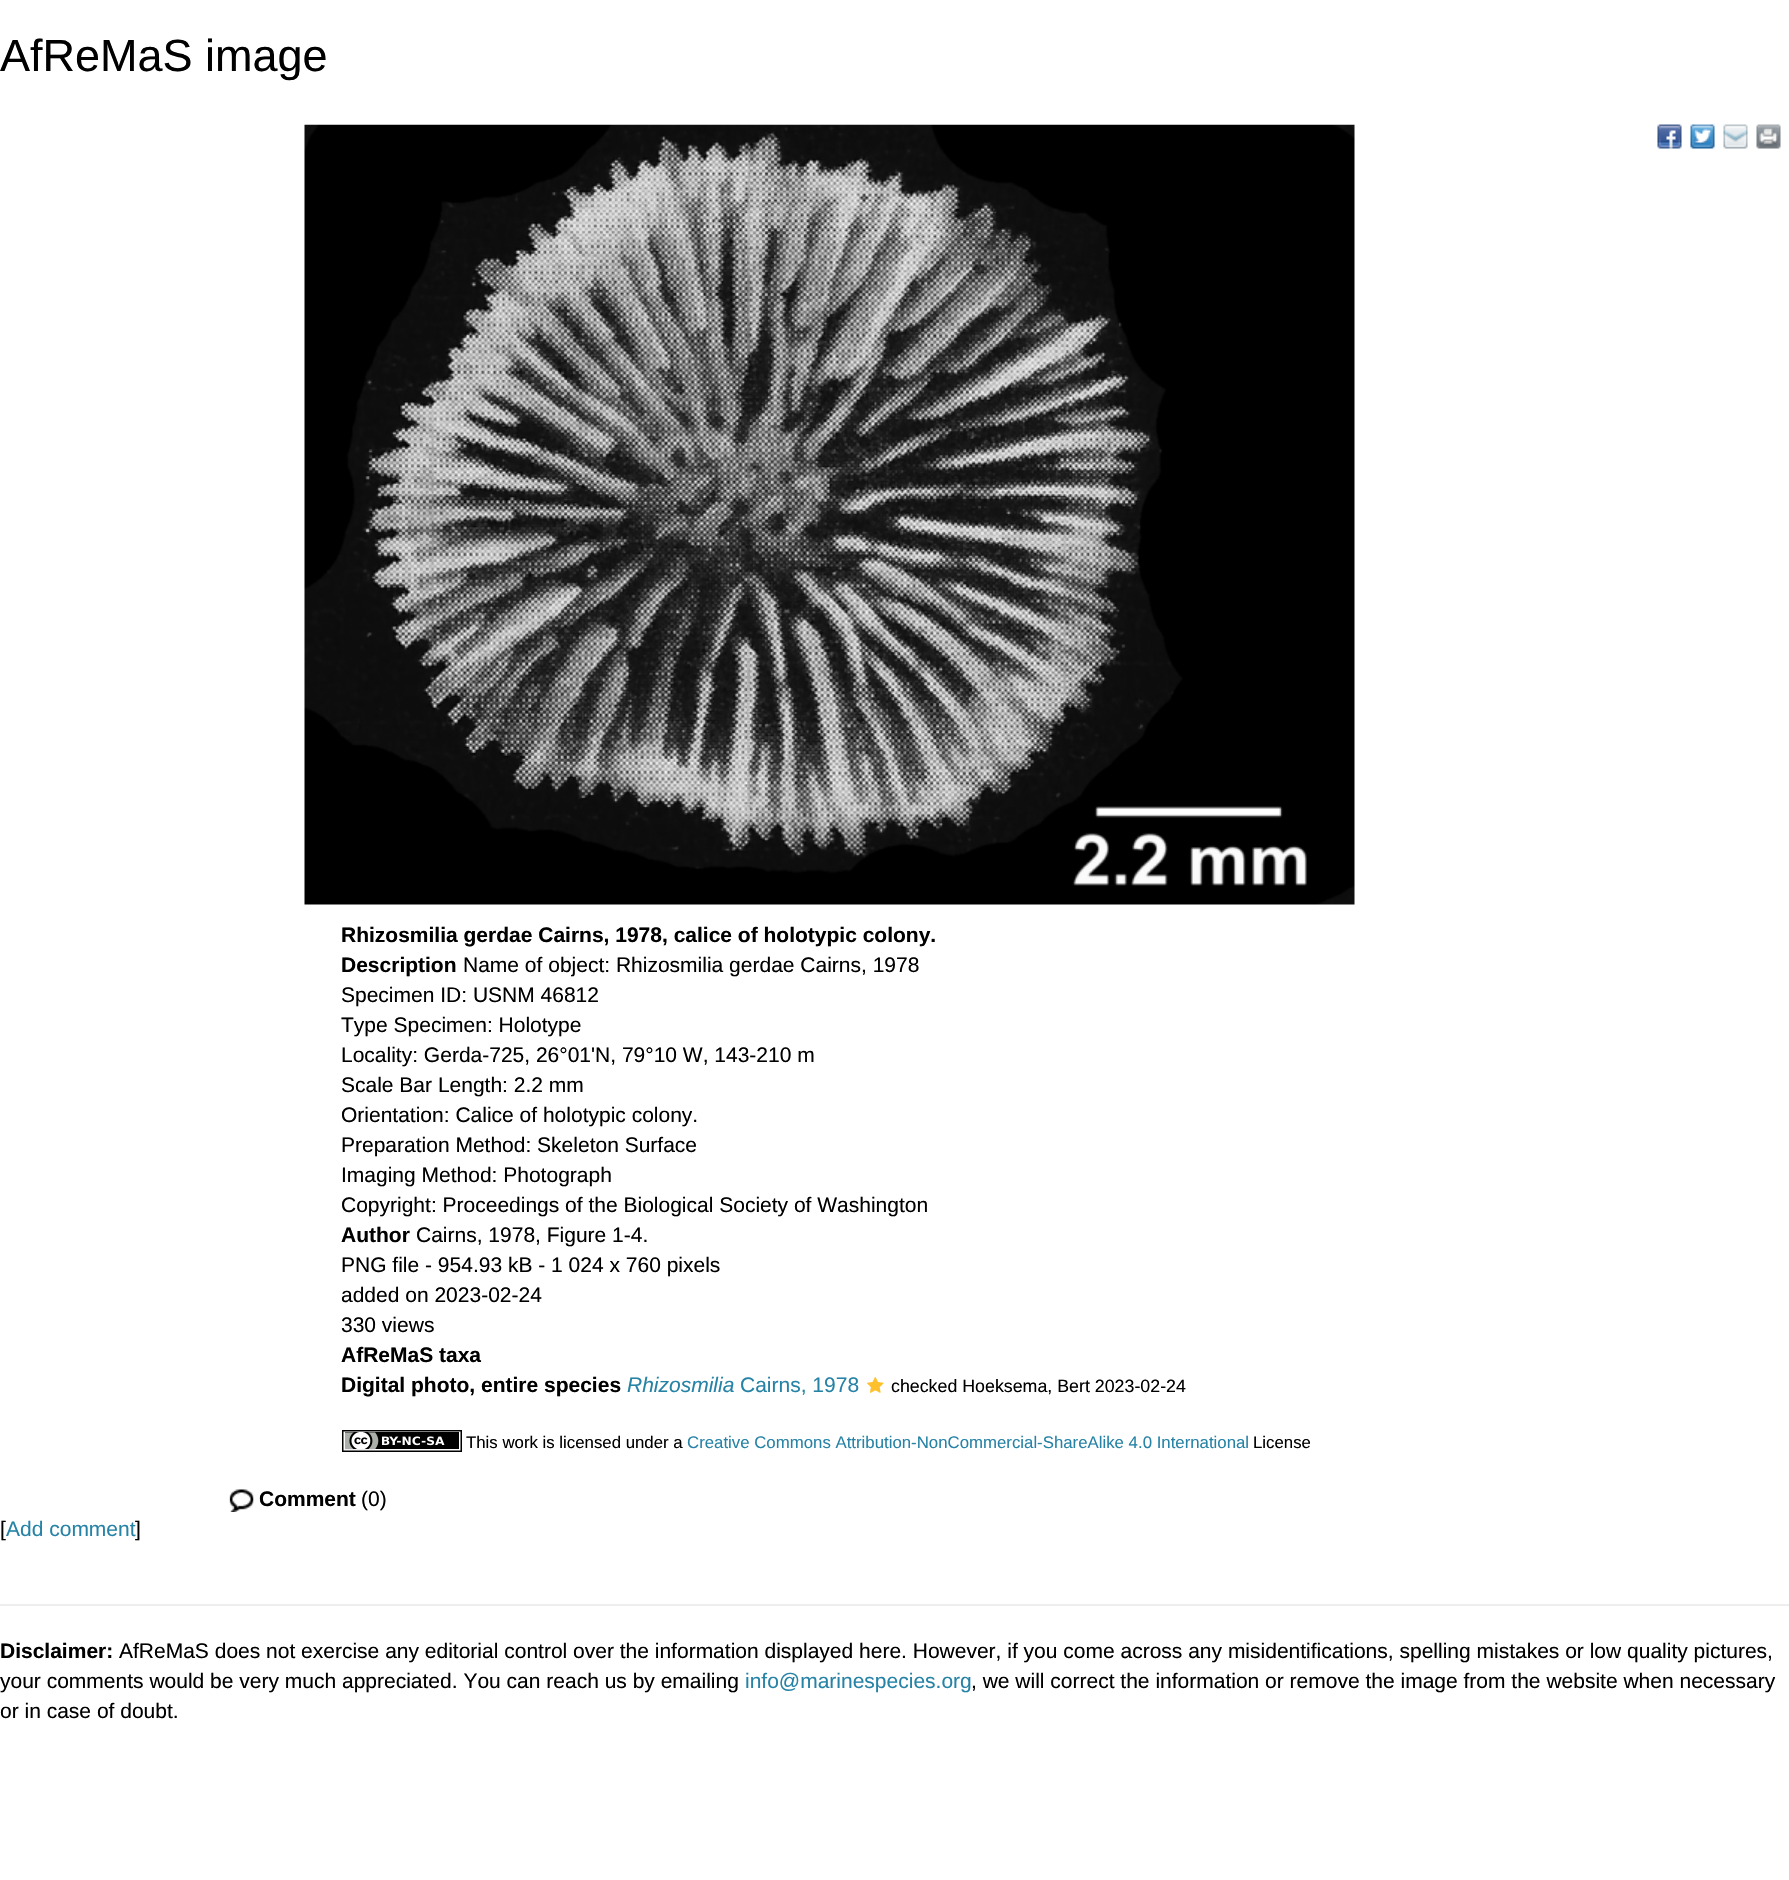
void draw(SkCanvas* c) {
SkPaint p;
p.setAntiAlias(true);
auto F=[&](const char* family, int weight, float size, bool italic = false){SkFontStyle style(weight, SkFontStyle::kNormal_Width,italic ? SkFontStyle::kItalic_Slant : SkFontStyle::kUpright_Slant);SkFont result(fontMgr->matchFamilyStyle(family, style), size);result.setSubpixel(true);return result;};
auto T=[&](const char* s, float x, float y, const SkFont& font){c->drawString(s, x, y, font, p);};
auto R=[&](float x, float y, float w, float h){c->drawRect(SkRect::MakeXYWH(x, y, w, h), p);};
auto I=[&](const char* path, float x, float y, float w, float h){auto image = SkImages::DeferredFromEncodedData(SkData::MakeFromFileName(path));c->drawImageRect(image, SkRect::MakeXYWH(x, y, w, h), SkSamplingOptions());};
c->clear(0xffffffff);
auto f1 = F("Liberation Sans",400,45);
p.setColor(0xff000000);
T("AfReMaS image",0,71,f1);
I("1.png",1657,124,25,25);
I("2.png",1690,124,25,25);
I("3.png",1723,124,25,25);
I("4.png",1756,124,25,25);
I("5.png",304,124,1051,781);
auto f2 = F("Liberation Sans",700,21);
T("Rhizosmilia gerdae Cairns, 1978, calice of holotypic colony.",341,942,f2);
T("Description",341,972,f2);
auto f3 = F("Liberation Sans",400,21);
T("Name of object: Rhizosmilia gerdae Cairns, 1978",463,972,f3);
T("Specimen ID: USNM 46812",341,1002,f3);
T("Type Specimen: Holotype",341,1032,f3);
T("Locality: Gerda-725, 26°01'N, 79°10 W, 143-210 m",341,1062,f3);
T("Scale Bar Length: 2.2 mm",341,1092,f3);
T("Orientation: Calice of holotypic colony.",341,1122,f3);
T("Preparation Method: Skeleton Surface",341,1152,f3);
T("Imaging Method: Photograph",341,1182,f3);
T("Copyright: Proceedings of the Biological Society of Washington",341,1212,f3);
T("Author",341,1242,f2);
T("Cairns, 1978, Figure 1-4.",416,1242,f3);
T("PNG file - 954.93 kB - 1 024 x 760 pixels",341,1272,f3);
T("added on 2023-02-24",341,1302,f3);
T("330 views",341,1332,f3);
T("AfReMaS taxa",341,1362,f2);
T("Digital photo, entire species",341,1392,f2);
auto f4 = F("Liberation Sans",400,21,true);
p.setColor(0xff2683a6);
T("Rhizosmilia",627,1392,f4);
T("Cairns, 1978",740,1392,f3);
I("6.png",867,1377,17,16);
auto f5 = F("Liberation Sans",400,17.8);
p.setColor(0xff000000);
T("checked Hoeksema, Bert 2023-02-24",891,1392,f5);
I("7.png",342,1430,120,22);
auto f6 = F("Liberation Sans",400,16.8);
T("This work is licensed under a",466,1448,f6);
p.setColor(0xff2683a6);
T("Creative Commons Attribution-NonCommercial-ShareAlike 4.0 International",687,1448,f6);
p.setColor(0xff000000);
T("License",1253,1448,f6);
I("8.png",229,1489,25,23);
T("Comment",259,1506,f2);
T("(0)",361,1506,f3);
T("[",0,1536,f3);
p.setColor(0xff2683a6);
T("Add comment",6,1536,f3);
p.setColor(0xff000000);
T("]",135,1536,f3);
p.setColor(0xffeeeeee);
R(0,1604,1789,2);
p.setColor(0xff000000);
T("Disclaimer:",0,1658,f2);
T("AfReMaS does not exercise any editorial control over the information displayed here. However, if you come across any misidentifications, spelling mistakes or low quality pictures,",119,1658,f3);
T("your comments would be very much appreciated. You can reach us by emailing",0,1688,f3);
p.setColor(0xff2683a6);
T("info@marinespecies.org",745,1688,f3);
p.setColor(0xff000000);
T(", we will correct the information or remove the image from the website when necessary",971,1688,f3);
T("or in case of doubt.",0,1718,f3);
}
